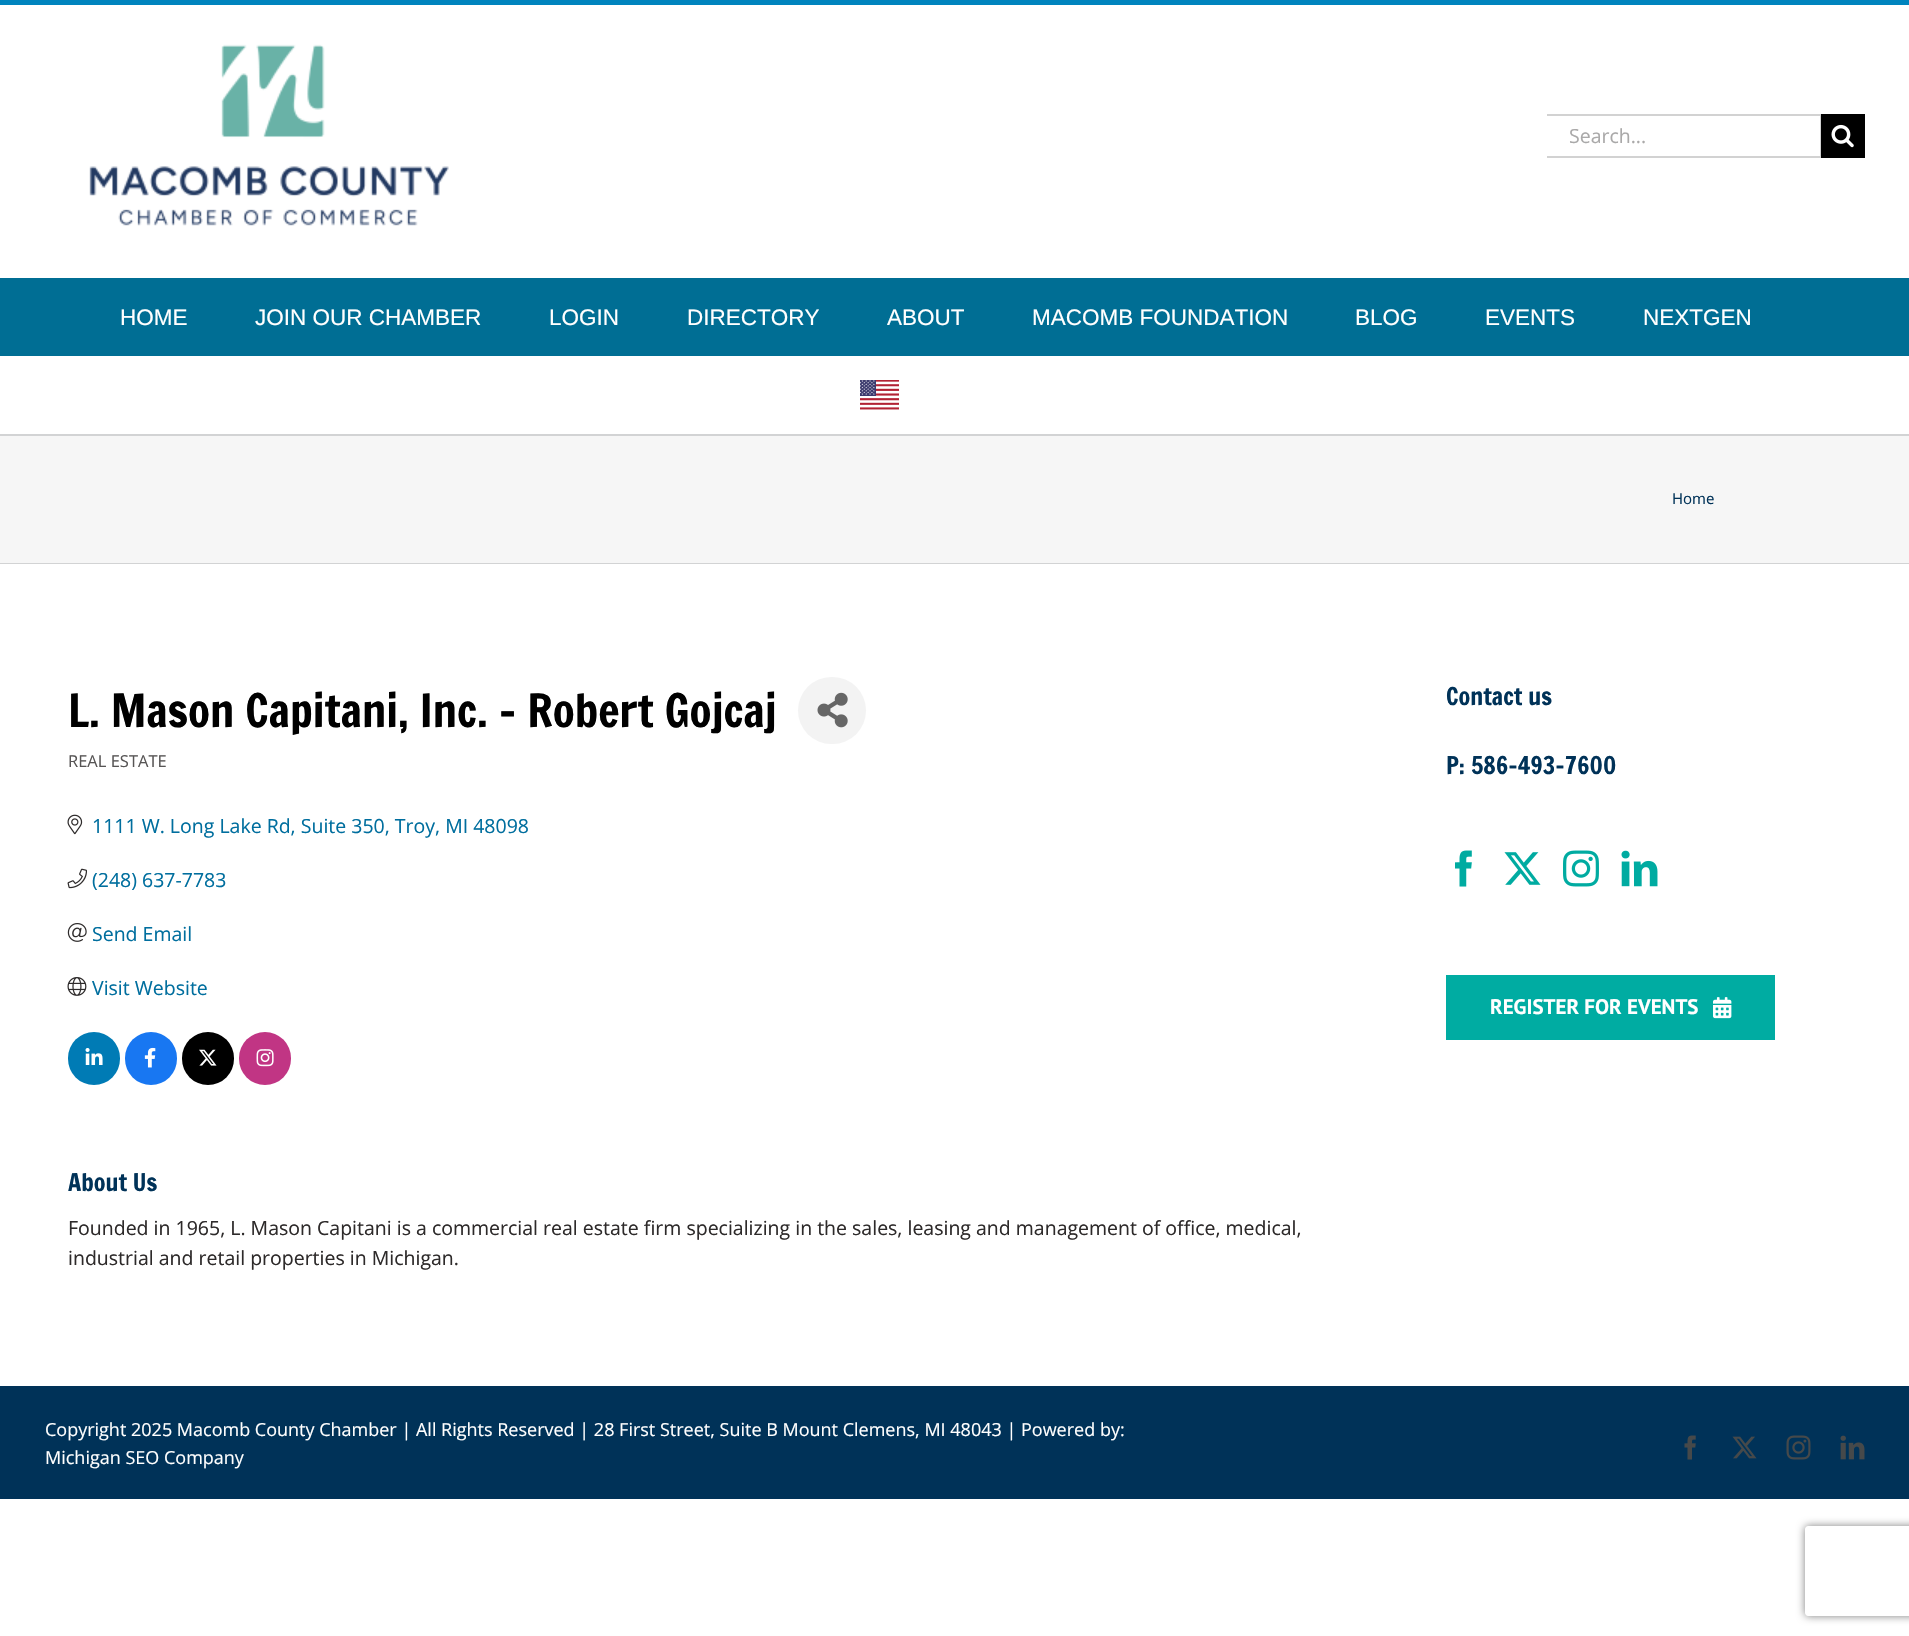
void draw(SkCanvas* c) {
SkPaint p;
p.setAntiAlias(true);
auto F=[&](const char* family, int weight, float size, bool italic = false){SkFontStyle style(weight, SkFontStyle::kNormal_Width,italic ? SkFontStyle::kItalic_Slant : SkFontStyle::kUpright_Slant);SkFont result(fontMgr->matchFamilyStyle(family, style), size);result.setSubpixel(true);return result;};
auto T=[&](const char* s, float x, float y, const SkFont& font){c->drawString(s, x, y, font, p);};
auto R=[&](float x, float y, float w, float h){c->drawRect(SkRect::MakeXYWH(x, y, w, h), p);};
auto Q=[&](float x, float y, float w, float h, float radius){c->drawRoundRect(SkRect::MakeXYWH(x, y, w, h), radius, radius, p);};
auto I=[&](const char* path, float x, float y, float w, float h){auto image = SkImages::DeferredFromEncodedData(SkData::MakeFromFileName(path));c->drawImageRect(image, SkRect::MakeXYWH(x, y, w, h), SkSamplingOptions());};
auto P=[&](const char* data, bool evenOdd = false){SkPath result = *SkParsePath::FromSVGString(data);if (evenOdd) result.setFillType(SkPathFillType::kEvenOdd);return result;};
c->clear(0xffffffff);
p.setColor(0xff0084be);
R(0,0,1909,5);
I("1.png",89,44,360,182);
p.setColor(0xffd2d2d2);
R(1547,114,274,2);
R(1820,114,1,44);
R(1547,156,274,2);
auto f1 = F("Open Sans",400,19.5);
p.setColor(0xffaaa9a9);
T("Search...",1569,143,f1);
p.setColor(0xff000000);
R(1821,114,44,44);
I("2.png",1831,124,23,24);
p.setColor(0xff006e94);
R(0,278,1909,78);
auto f2 = F("Liberation Sans",400,22.5);
p.setColor(0xffffffff);
T("HOME",120,325,f2);
T("JOIN OUR CHAMBER",255,325,f2);
T("LOGIN",549,325,f2);
T("DIRECTORY",687,325,f2);
T("ABOUT",887,325,f2);
T("MACOMB FOUNDATION",1032,325,f2);
T("BLOG",1355,325,f2);
T("EVENTS",1485,325,f2);
T("NEXTGEN",1643,325,f2);
I("3.png",860,380,39,30);
p.setColor(0xfff6f6f6);
R(0,436,1909,127);
p.setColor(0xffd2d3d4);
R(0,434,1909,2);
R(0,563,1909,1);
auto f3 = F("Open Sans",400,15);
p.setColor(0xff003258);
T("Home",1672,504,f3);
auto f4 = F("Francois One",400,45);
p.setColor(0xff000000);
T("L. Mason Capitani, Inc. - Robert Gojcaj",68,727,f4);
p.setColor(0xfff3f3f3);
Q(798,677,68,67,33.5);
I("4.png",817,692,31,36);
auto f5 = F("Open Sans",400,16.5);
p.setColor(0xff575555);
T("REAL ESTATE",68,767,f5);
I("5.png",67,814,16,21);
p.setColor(0xff006e9e);
T("1111 W. Long Lake Rd, Suite 350, Troy, MI 48098",92,833,f1);
I("6.png",67,868,20,21);
T("(248) 637-7783",92,887,f1);
I("7.png",67,923,20,19);
T("Send Email",92,941,f1);
I("8.png",67,977,20,19);
T("Visit Website",92,995,f1);
p.setColor(0xff007bb5);
Q(68,1032,52,53,26);
I("9.png",85,1048,18,17);
p.setColor(0xff1877f2);
Q(125,1032,52,53,26);
I("10.png",144,1047,12,21);
p.setColor(0xff000000);
Q(182,1032,52,53,26);
I("11.png",199,1049,18,17);
p.setColor(0xffc13584);
Q(239,1032,52,53,26);
I("12.png",256,1049,18,18);
auto f6 = F("Francois One",400,24);
p.setColor(0xff003258);
T("About Us",68,1191,f6);
p.setColor(0xff2d2a2a);
T("Founded in 1965, L. Mason Capitani is a commercial real estate firm specializing in the sales, leasing and management of office, medical,",68,1235,f1);
T("industrial and retail properties in Michigan.",68,1265,f1);
p.setColor(0xff003258);
T("Contact us",1446,705,f6);
T("P: 586-493-7600",1446,774,f6);
I("13.png",1455,850,17,37);
I("14.png",1504,852,37,33);
I("15.png",1563,850,36,37);
I("16.png",1621,850,37,37);
p.setColor(0xff00aca2);
R(1446,975,329,65);
auto f7 = F("PT Sans",700,21);
p.setColor(0xffffffff);
T("REGISTER FOR EVENTS",1490,1014,f7);
I("17.png",1713,997,19,22);
p.setColor(0xff003258);
R(0,1386,1909,113);
auto f8 = F("Open Sans",400,18);
p.setColor(0xffffffff);
T("Copyright 2025 Macomb County Chamber | All Rights Reserved | 28 First Street, Suite B Mount Clemens, MI 48043 | Powered by:",45,1436,f8);
T("Michigan SEO Company",45,1464,f8);
I("18.png",1684,1435,12,25);
I("19.png",1732,1436,25,23);
I("20.png",1786,1435,25,25);
I("21.png",1840,1435,25,25);
c->save();
c->clipPath(P("M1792 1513h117v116h-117zm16 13h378c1.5 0 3 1.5 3 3v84c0 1.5-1.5 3-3 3h-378c-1.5 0-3-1.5-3-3v-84c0-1.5 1.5-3 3-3z",true),true);
p.setColor(0xff808080);
p.setMaskFilter(SkMaskFilter::MakeBlur(kNormal_SkBlurStyle, 4));
c->drawRoundRect(SkRect::MakeXYWH(1805,1526,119,90),3,3,p);
p.setMaskFilter(nullptr);
c->restore();
}
